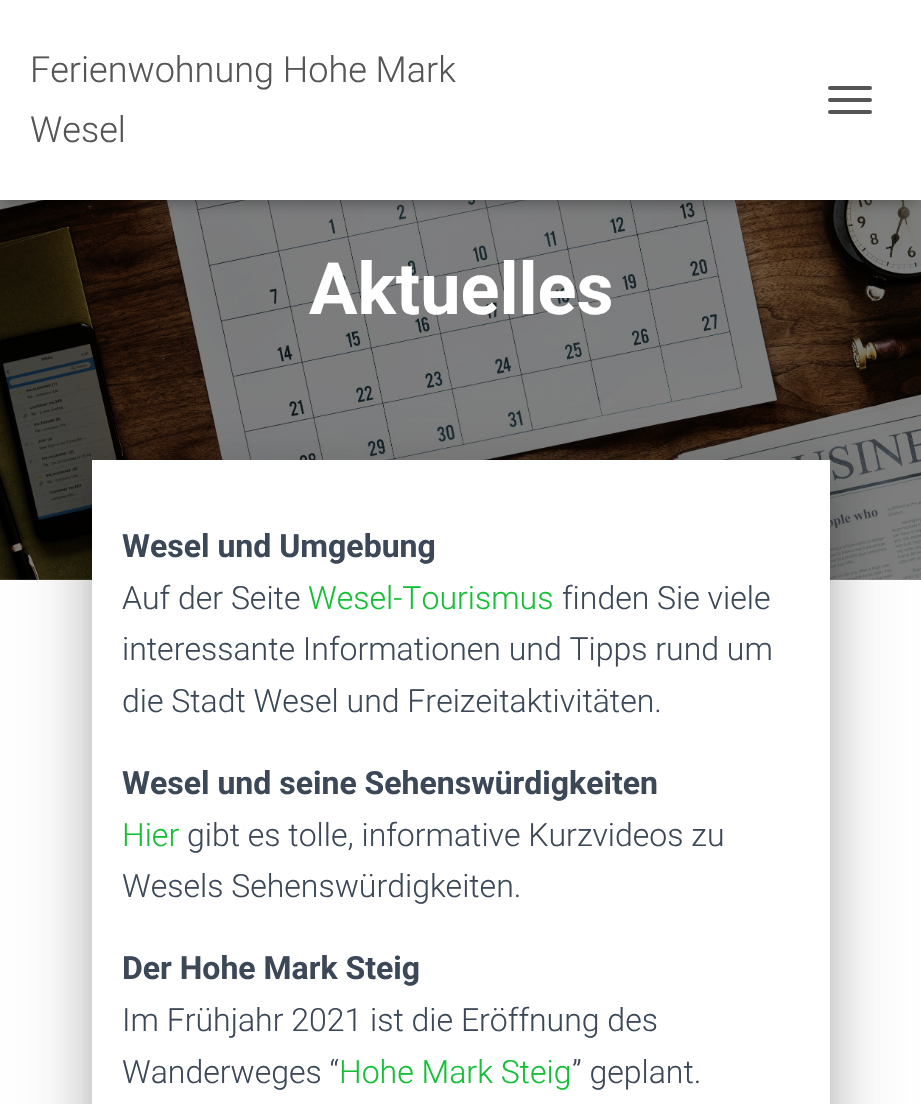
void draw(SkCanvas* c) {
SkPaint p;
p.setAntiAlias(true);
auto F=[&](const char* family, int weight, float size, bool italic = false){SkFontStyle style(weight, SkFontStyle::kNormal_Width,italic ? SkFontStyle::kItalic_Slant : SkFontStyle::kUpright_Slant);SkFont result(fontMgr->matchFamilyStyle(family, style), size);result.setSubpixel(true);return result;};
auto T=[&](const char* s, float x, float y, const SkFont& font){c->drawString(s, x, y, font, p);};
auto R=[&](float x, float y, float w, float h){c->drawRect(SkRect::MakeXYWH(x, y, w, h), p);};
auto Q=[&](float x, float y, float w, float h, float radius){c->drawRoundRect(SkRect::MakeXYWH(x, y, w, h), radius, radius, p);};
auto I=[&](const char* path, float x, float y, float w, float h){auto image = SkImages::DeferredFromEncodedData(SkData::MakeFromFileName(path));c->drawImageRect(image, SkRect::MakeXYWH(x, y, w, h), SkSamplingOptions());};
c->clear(0xffffffff);
I("1.png",0,200,921,380);
p.setColor(0x1a000000);
p.setMaskFilter(SkMaskFilter::MakeBlur(kNormal_SkBlurStyle, 5));
c->drawRect(SkRect::MakeXYWH(4,12,914,192),p);
p.setMaskFilter(nullptr);
p.setColor(0x1f000000);
p.setMaskFilter(SkMaskFilter::MakeBlur(kNormal_SkBlurStyle, 10));
c->drawRect(SkRect::MakeXYWH(0,2,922,200),p);
p.setMaskFilter(nullptr);
p.setColor(0x6b000000);
p.setMaskFilter(SkMaskFilter::MakeBlur(kNormal_SkBlurStyle, 10));
c->drawRect(SkRect::MakeXYWH(12,14,898,176),p);
p.setMaskFilter(nullptr);
p.setColor(0xffffffff);
R(0,0,921,200);
auto f1 = F("Roboto",300,36);
p.setColor(0xff555555);
T("Ferienwohnung Hohe Mark",30,82,f1);
T("Wesel",30,142,f1);
Q(828,86,44,4,2);
Q(828,98,44,4,2);
Q(828,110,44,4,2);
auto f2 = F("Roboto",700,72);
p.setColor(0xffffffff);
T("Aktuelles",309,314,f2);
p.setColor(0x33000000);
p.setMaskFilter(SkMaskFilter::MakeBlur(kNormal_SkBlurStyle, 10));
c->drawRect(SkRect::MakeXYWH(102,486,718,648),p);
p.setMaskFilter(nullptr);
p.setColor(0x1f000000);
p.setMaskFilter(SkMaskFilter::MakeBlur(kNormal_SkBlurStyle, 30));
c->drawRect(SkRect::MakeXYWH(82,462,758,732),p);
p.setMaskFilter(nullptr);
p.setColor(0x24000000);
p.setMaskFilter(SkMaskFilter::MakeBlur(kNormal_SkBlurStyle, 24));
c->drawRect(SkRect::MakeXYWH(88,488,746,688),p);
p.setMaskFilter(nullptr);
p.setColor(0xffffffff);
R(92,460,738,644);
auto f3 = F("Roboto",700,32);
p.setColor(0xff3c4858);
T("Wesel und Umgebung",122,557,f3);
auto f4 = F("Roboto",300,32);
T("Auf der Seite",122,609,f4);
p.setColor(0xff13bf34);
T("Wesel-Tourismus",308,609,f4);
p.setColor(0xff3c4858);
T("finden Sie viele",562,609,f4);
T("interessante Informationen und Tipps rund um",122,660,f4);
T("die Stadt Wesel und Freizeitaktivitäten.",122,712,f4);
T("Wesel und seine Sehenswürdigkeiten",122,794,f3);
p.setColor(0xff13bf34);
T("Hier",122,846,f4);
p.setColor(0xff3c4858);
T("gibt es tolle, informative Kurzvideos zu",187,846,f4);
T("Wesels Sehenswürdigkeiten.",122,897,f4);
T("Der Hohe Mark Steig",122,979,f3);
T("Im Frühjahr 2021 ist die Eröffnung des",122,1031,f4);
T("Wanderweges “",122,1083,f4);
p.setColor(0xff13bf34);
T("Hohe Mark Steig",339,1083,f4);
p.setColor(0xff3c4858);
T("” geplant.",572,1083,f4);
}
